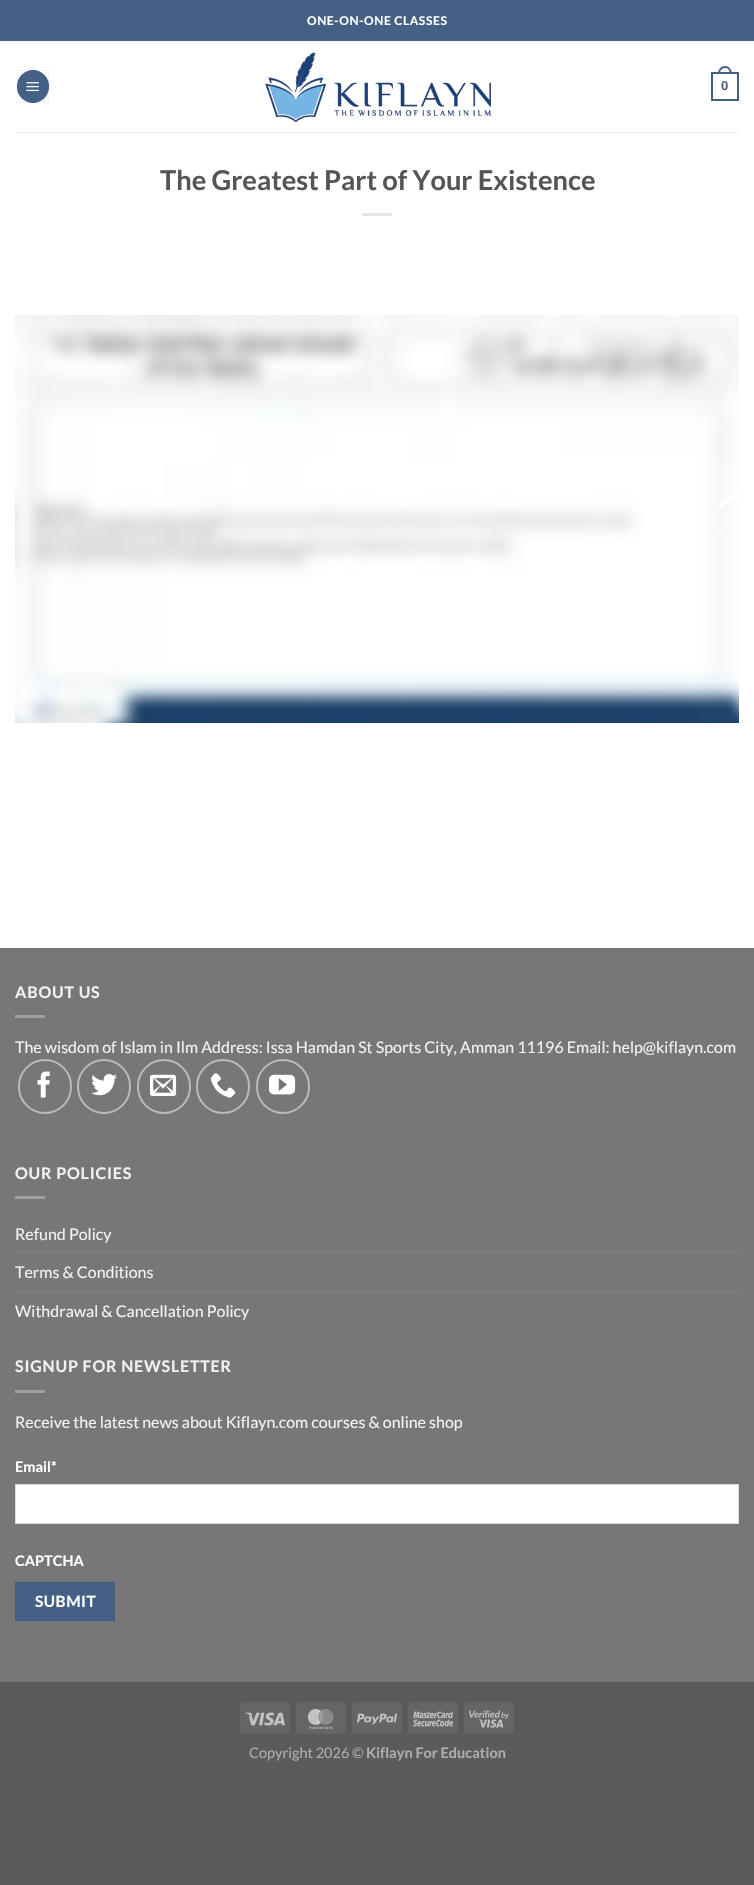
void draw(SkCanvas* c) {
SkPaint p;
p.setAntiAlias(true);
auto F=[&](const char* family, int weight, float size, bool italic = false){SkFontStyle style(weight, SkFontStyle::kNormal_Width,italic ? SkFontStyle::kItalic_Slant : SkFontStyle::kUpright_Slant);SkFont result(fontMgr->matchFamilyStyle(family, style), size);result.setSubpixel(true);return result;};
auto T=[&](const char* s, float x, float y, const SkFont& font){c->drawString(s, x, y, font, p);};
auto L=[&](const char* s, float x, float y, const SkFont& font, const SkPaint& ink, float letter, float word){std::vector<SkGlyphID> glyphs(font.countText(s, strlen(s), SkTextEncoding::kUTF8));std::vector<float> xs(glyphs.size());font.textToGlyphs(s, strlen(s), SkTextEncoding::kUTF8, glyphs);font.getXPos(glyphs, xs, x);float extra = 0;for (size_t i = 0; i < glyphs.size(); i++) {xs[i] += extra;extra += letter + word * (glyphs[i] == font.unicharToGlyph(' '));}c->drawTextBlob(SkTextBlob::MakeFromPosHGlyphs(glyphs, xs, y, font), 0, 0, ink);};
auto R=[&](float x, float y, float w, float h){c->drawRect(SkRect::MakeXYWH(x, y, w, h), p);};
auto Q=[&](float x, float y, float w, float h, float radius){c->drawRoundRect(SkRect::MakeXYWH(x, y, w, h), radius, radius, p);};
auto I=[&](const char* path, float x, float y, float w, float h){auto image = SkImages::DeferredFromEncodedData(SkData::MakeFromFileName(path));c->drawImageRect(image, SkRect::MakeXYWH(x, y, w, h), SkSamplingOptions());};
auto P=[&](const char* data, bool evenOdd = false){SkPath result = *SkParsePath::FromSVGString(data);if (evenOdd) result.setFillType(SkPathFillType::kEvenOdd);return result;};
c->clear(0xff5b5b5b);
p.setColor(0xffffffff);
R(0,41,754,907);
p.setColor(0xff446084);
R(0,0,754,41);
auto f1 = F("Lato",700,12);
p.setColor(0xffffffff);
L("ONE-ON-ONE CLASSES",307,25,f1,p,.6,0);
p.setColor(0xff446084);
Q(17,70,32,33,16);
p.setStroke(true);
p.setStrokeWidth(1);
p.setColor(0x0d000000);
c->drawRect(SkRect::MakeXYWH(17.5,70.5,31,32),p);
I("1.png",26,82,13,10);
I("2.png",265,52,226,70);
p.setStrokeWidth(2);
p.setColor(0xff446084);
c->drawRect(SkRect::MakeXYWH(712,73,26,27),p);
p.setStroke(false);
c->drawPath(P("M725 66c4.5 0 7 4 7 8h-14c0-4 2.5-8 7-8zm0 2c3.5 0 5 3 5 6h-10c0-3 1.5-6 5-6z",true),p);
auto f2 = F("Liberation Sans",700,13);
T("0",721,90,f2);
p.setColor(0xfff1f1f1);
R(15,132,724,1);
auto f3 = F("Lato",700,27.25);
p.setColor(0xff555555);
T("The Greatest Part of Your Existence",160,190,f3);
p.setColor(0xffe6e6e6);
R(362,213,30,3);
I("3.png",15,315,724,408);
p.setColor(0xff777777);
R(0,949,754,733);
p.setColor(0xff717171);
R(0,948,754,1);
auto f4 = F("Lato",700,16);
p.setColor(0xfff1f1f1);
L("ABOUT US",15,998,f4,p,.8,0);
p.setColor(0xffa0a0a0);
R(15,1015,30,3);
auto f5 = F("Lato",400,16);
p.setColor(0xfff1f1f1);
T("The wisdom of Islam in Ilm Address: Issa Hamdan St Sports City, Amman 11196 Email: help@kiflayn.com",15,1053,f5);
p.setStroke(true);
p.setColor(0xffbbbbbb);
c->drawRoundRect(SkRect::MakeXYWH(19,1060,52,53),26,26,p);
I("4.png",37,1071,13,27);
c->drawRoundRect(SkRect::MakeXYWH(78,1060,52,53),26,26,p);
I("5.png",91,1074,26,22);
c->drawRoundRect(SkRect::MakeXYWH(138,1060,52,53),26,26,p);
I("6.png",150,1074,27,22);
c->drawRoundRect(SkRect::MakeXYWH(197,1060,52,53),26,26,p);
I("7.png",210,1073,26,25);
c->drawRoundRect(SkRect::MakeXYWH(257,1060,52,53),26,26,p);
I("8.png",269,1074,27,21);
p.setStroke(false);
p.setColor(0xfff1f1f1);
L("OUR POLICIES",15,1179,f4,p,.8,0);
p.setColor(0xffa0a0a0);
R(15,1196,30,3);
p.setColor(0xfff1f1f1);
T("Refund Policy",15,1240,f5);
p.setColor(0xff828282);
R(15,1252,724,1);
p.setColor(0xfff1f1f1);
T("Terms & Conditions",15,1278,f5);
p.setColor(0xff828282);
R(15,1291,724,1);
p.setColor(0xfff1f1f1);
T("Withdrawal & Cancellation Policy",15,1317,f5);
L("SIGNUP FOR NEWSLETTER",15,1372,f4,p,.8,0);
p.setColor(0xffa0a0a0);
R(15,1390,30,3);
p.setColor(0xfff1f1f1);
T("Receive the latest news about Kiflayn.com courses & online shop",15,1428,f5);
auto f6 = F("Lato",700,14.5);
p.setColor(0xffffffff);
T("Email*",15,1472,f6);
c->drawRect(SkRect::MakeXYWH(15.5,1484.5,723,39),p);
p.setStroke(true);
p.setStrokeWidth(1);
p.setColor(0xffdddddd);
c->drawRect(SkRect::MakeXYWH(15.5,1484.5,723,39),p);
p.setStroke(false);
p.setColor(0xffffffff);
T("CAPTCHA",15,1566,f6);
p.setColor(0xff446084);
c->drawRect(SkRect::MakeXYWH(15.5,1582.5,99,38),p);
p.setStroke(true);
p.setColor(0xff415b7d);
c->drawRect(SkRect::MakeXYWH(15.5,1582.5,99,38),p);
auto f7 = F("Lato",700,15.5);
p.setStroke(false);
p.setColor(0xffffffff);
L("SUBMIT",35,1607,f7,p,.5,0);
p.setColor(0xff656565);
Q(240,1702,50,32,5);
I("9.png",245,1712,40,14);
Q(296,1702,50,32,5);
I("10.png",307,1709,27,20);
Q(352,1702,50,32,5);
I("11.png",357,1713,40,12);
Q(408,1702,50,32,5);
I("12.png",413,1711,40,16);
Q(464,1702,50,32,5);
I("13.png",469,1710,40,18);
auto f8 = F("Lato",400,14.5);
p.setColor(0xffadadad);
T("Copyright 2026 ©",249,1758,f8);
T("Kiflayn For Education",366,1758,f6);
}
